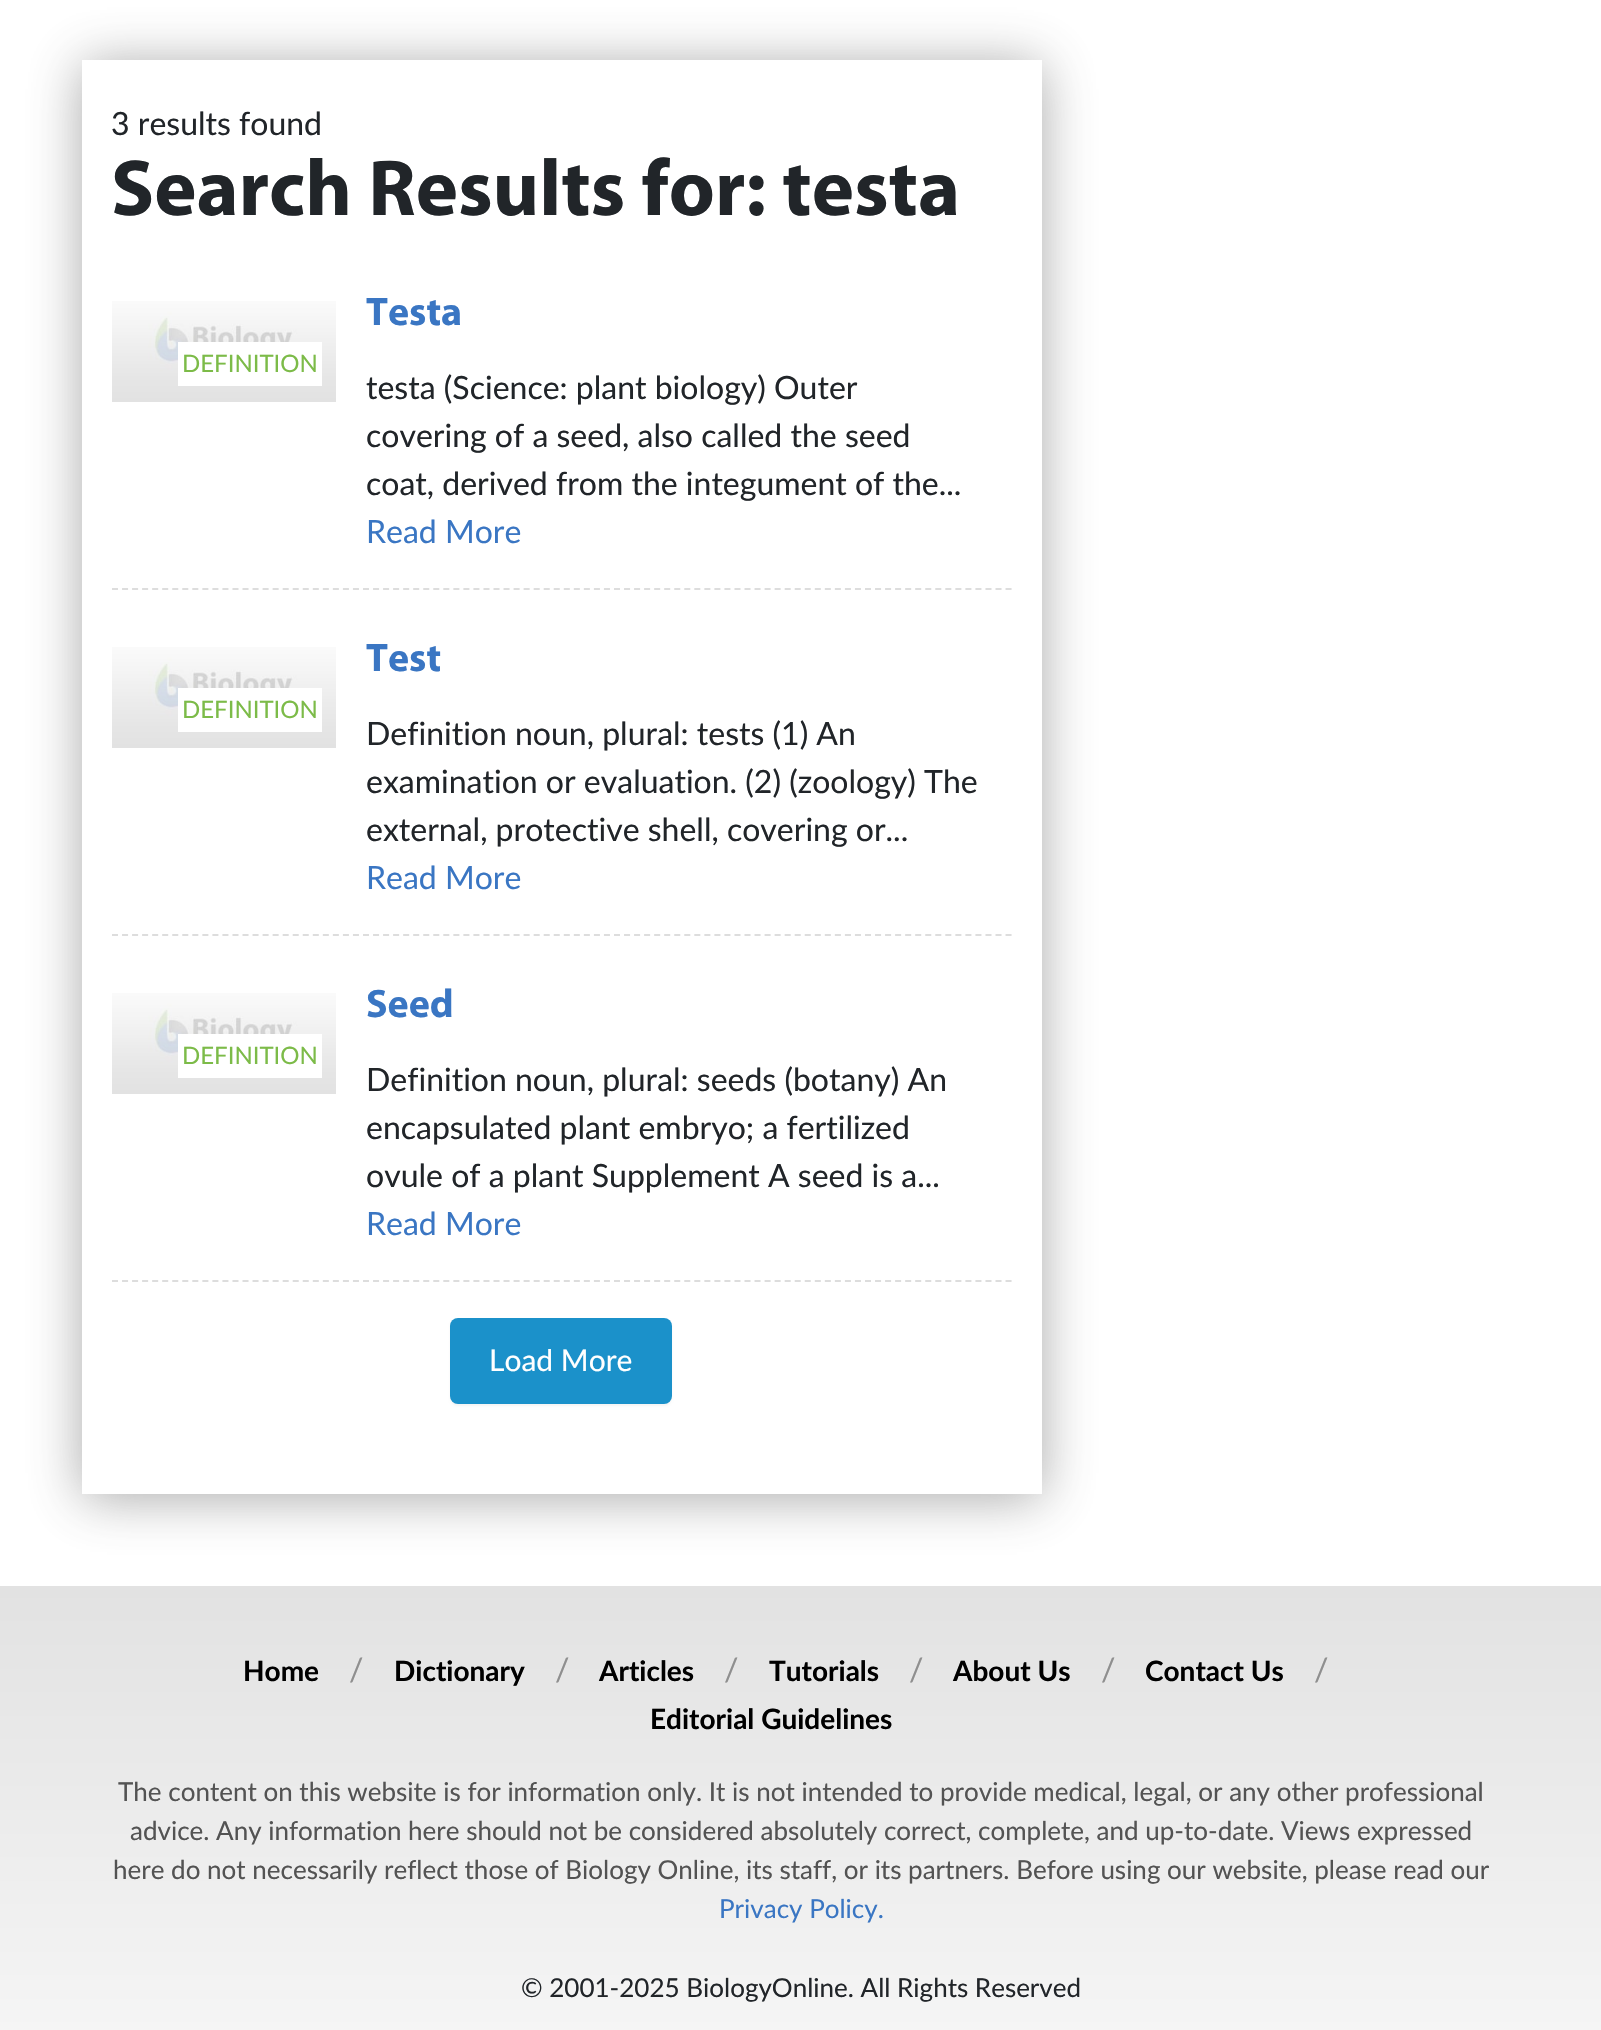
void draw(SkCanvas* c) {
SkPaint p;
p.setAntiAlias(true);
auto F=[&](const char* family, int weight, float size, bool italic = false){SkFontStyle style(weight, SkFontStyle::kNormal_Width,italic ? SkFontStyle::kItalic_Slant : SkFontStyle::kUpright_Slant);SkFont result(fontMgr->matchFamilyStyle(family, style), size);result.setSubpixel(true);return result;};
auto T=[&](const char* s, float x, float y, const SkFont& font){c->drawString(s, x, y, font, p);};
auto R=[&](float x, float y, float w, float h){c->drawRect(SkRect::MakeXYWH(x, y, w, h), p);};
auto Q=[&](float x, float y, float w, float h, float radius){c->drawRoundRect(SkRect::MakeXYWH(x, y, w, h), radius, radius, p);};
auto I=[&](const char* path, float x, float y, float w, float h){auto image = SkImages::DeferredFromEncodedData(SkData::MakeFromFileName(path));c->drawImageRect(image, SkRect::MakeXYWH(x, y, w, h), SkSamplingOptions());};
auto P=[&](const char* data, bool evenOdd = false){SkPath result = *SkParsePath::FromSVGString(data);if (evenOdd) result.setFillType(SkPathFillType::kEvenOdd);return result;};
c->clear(0xffffffff);
c->save();
c->clipPath(P("M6 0h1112v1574h-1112zm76 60h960v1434h-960z",true),true);
p.setColor(0x73414141);
p.setMaskFilter(SkMaskFilter::MakeBlur(kNormal_SkBlurStyle, 25));
c->drawRect(SkRect::MakeXYWH(82,64,960,1434),p);
p.setMaskFilter(nullptr);
c->restore();
auto f1 = F("Lato",400,32);
p.setColor(0xff212529);
T("3 results found",111,135,f1);
auto f2 = F("Myriad",700,80);
T("Search Results for: testa",111,215,f2);
p.setStroke(true);
p.setStrokeWidth(2);
p.setColor(0xffdddddd);
p.setPathEffect(SkDashPathEffect::Make({{6,4.04f}}, 0));
c->drawPath(P("M112 589h900"),p);
p.setPathEffect(nullptr);
I("1.png",112,301,224,101);
p.setStroke(false);
p.setColor(0xffffffff);
R(178,342,144,44);
auto f3 = F("Lato",400,24);
p.setColor(0xff7cbb48);
T("DEFINITION",182,372,f3);
auto f4 = F("Myriad",700,40);
p.setColor(0xff3a76c3);
T("Testa",366,325,f4);
p.setColor(0xff212529);
T("testa (Science: plant biology) Outer",366,399,f1);
T("covering of a seed, also called the seed",366,447,f1);
T("coat, derived from the integument of the...",366,495,f1);
p.setColor(0xff3a76c3);
T("Read More",366,543,f1);
p.setStroke(true);
p.setColor(0xffdddddd);
p.setPathEffect(SkDashPathEffect::Make({{6,4.04f}}, 0));
c->drawPath(P("M112 935h900"),p);
p.setPathEffect(nullptr);
I("1.png",112,647,224,101);
p.setStroke(false);
p.setColor(0xffffffff);
R(178,688,144,44);
p.setColor(0xff7cbb48);
T("DEFINITION",182,718,f3);
p.setColor(0xff3a76c3);
T("Test",366,671,f4);
p.setColor(0xff212529);
T("Definition noun, plural: tests (1) An",366,745,f1);
T("examination or evaluation. (2) (zoology) The",366,793,f1);
T("external, protective shell, covering or...",366,841,f1);
p.setColor(0xff3a76c3);
T("Read More",366,889,f1);
p.setStroke(true);
p.setColor(0xffdddddd);
p.setPathEffect(SkDashPathEffect::Make({{6,4.04f}}, 0));
c->drawPath(P("M112 1281h900"),p);
p.setPathEffect(nullptr);
I("1.png",112,993,224,101);
p.setStroke(false);
p.setColor(0xffffffff);
R(178,1034,144,44);
p.setColor(0xff7cbb48);
T("DEFINITION",182,1064,f3);
p.setColor(0xff3a76c3);
T("Seed",366,1017,f4);
p.setColor(0xff212529);
T("Definition noun, plural: seeds (botany) An",366,1091,f1);
T("encapsulated plant embryo; a fertilized",366,1139,f1);
T("ovule of a plant Supplement A seed is a...",366,1187,f1);
p.setColor(0xff3a76c3);
T("Read More",366,1235,f1);
p.setColor(0x0a000000);
p.setMaskFilter(SkMaskFilter::MakeBlur(kNormal_SkBlurStyle, 1));
c->drawRoundRect(SkRect::MakeXYWH(450,1320,222,86),8,8,p);
p.setMaskFilter(nullptr);
p.setColor(0xff1b91ca);
Q(450,1318,222,86,8);
auto f5 = F("Lato",400,30);
p.setColor(0xffffffff);
T("Load More",489,1371,f5);
{
const SkColor colors[] = {0xffe2e2e2,0xffffffff};
const float stops[] = {0,1};
const SkPoint ends[] = {{801,1586}, {801,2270}};
p.setShader(SkGradientShader::MakeLinear(ends, colors, stops, 2, SkTileMode::kClamp));
p.setAlpha(255);
}
R(0,1586,1601,444);
auto f6 = F("Lato",700,28);
p.setShader(nullptr);
p.setColor(0xff000000);
T("Home",243,1681,f6);
p.setColor(0xff8f8f8f);
T("/",349,1681,f1);
p.setColor(0xff000000);
T("Dictionary",394,1681,f6);
p.setColor(0xff8f8f8f);
T("/",555,1681,f1);
p.setColor(0xff000000);
T("Articles",599,1681,f6);
p.setColor(0xff8f8f8f);
T("/",724,1681,f1);
p.setColor(0xff000000);
T("Tutorials",769,1681,f6);
p.setColor(0xff8f8f8f);
T("/",909,1681,f1);
p.setColor(0xff000000);
T("About Us",953,1681,f6);
p.setColor(0xff8f8f8f);
T("/",1101,1681,f1);
p.setColor(0xff000000);
T("Contact Us",1145,1681,f6);
p.setColor(0xff8f8f8f);
T("/",1314,1681,f1);
p.setColor(0xff000000);
T("Editorial Guidelines",650,1729,f6);
auto f7 = F("Lato",400,26);
p.setColor(0xff535353);
T("The content on this website is for information only. It is not intended to provide medical, legal, or any other professional",118,1801,f7);
T("advice. Any information here should not be considered absolutely correct, complete, and up-to-date. Views expressed",130,1840,f7);
T("here do not necessarily reflect those of Biology Online, its staff, or its partners. Before using our website, please read our",113,1879,f7);
p.setColor(0xff3a76c3);
T("Privacy Policy.",719,1918,f7);
p.setColor(0xff212529);
T("© 2001-2025 BiologyOnline. All Rights Reserved",521,1997,f7);
}
